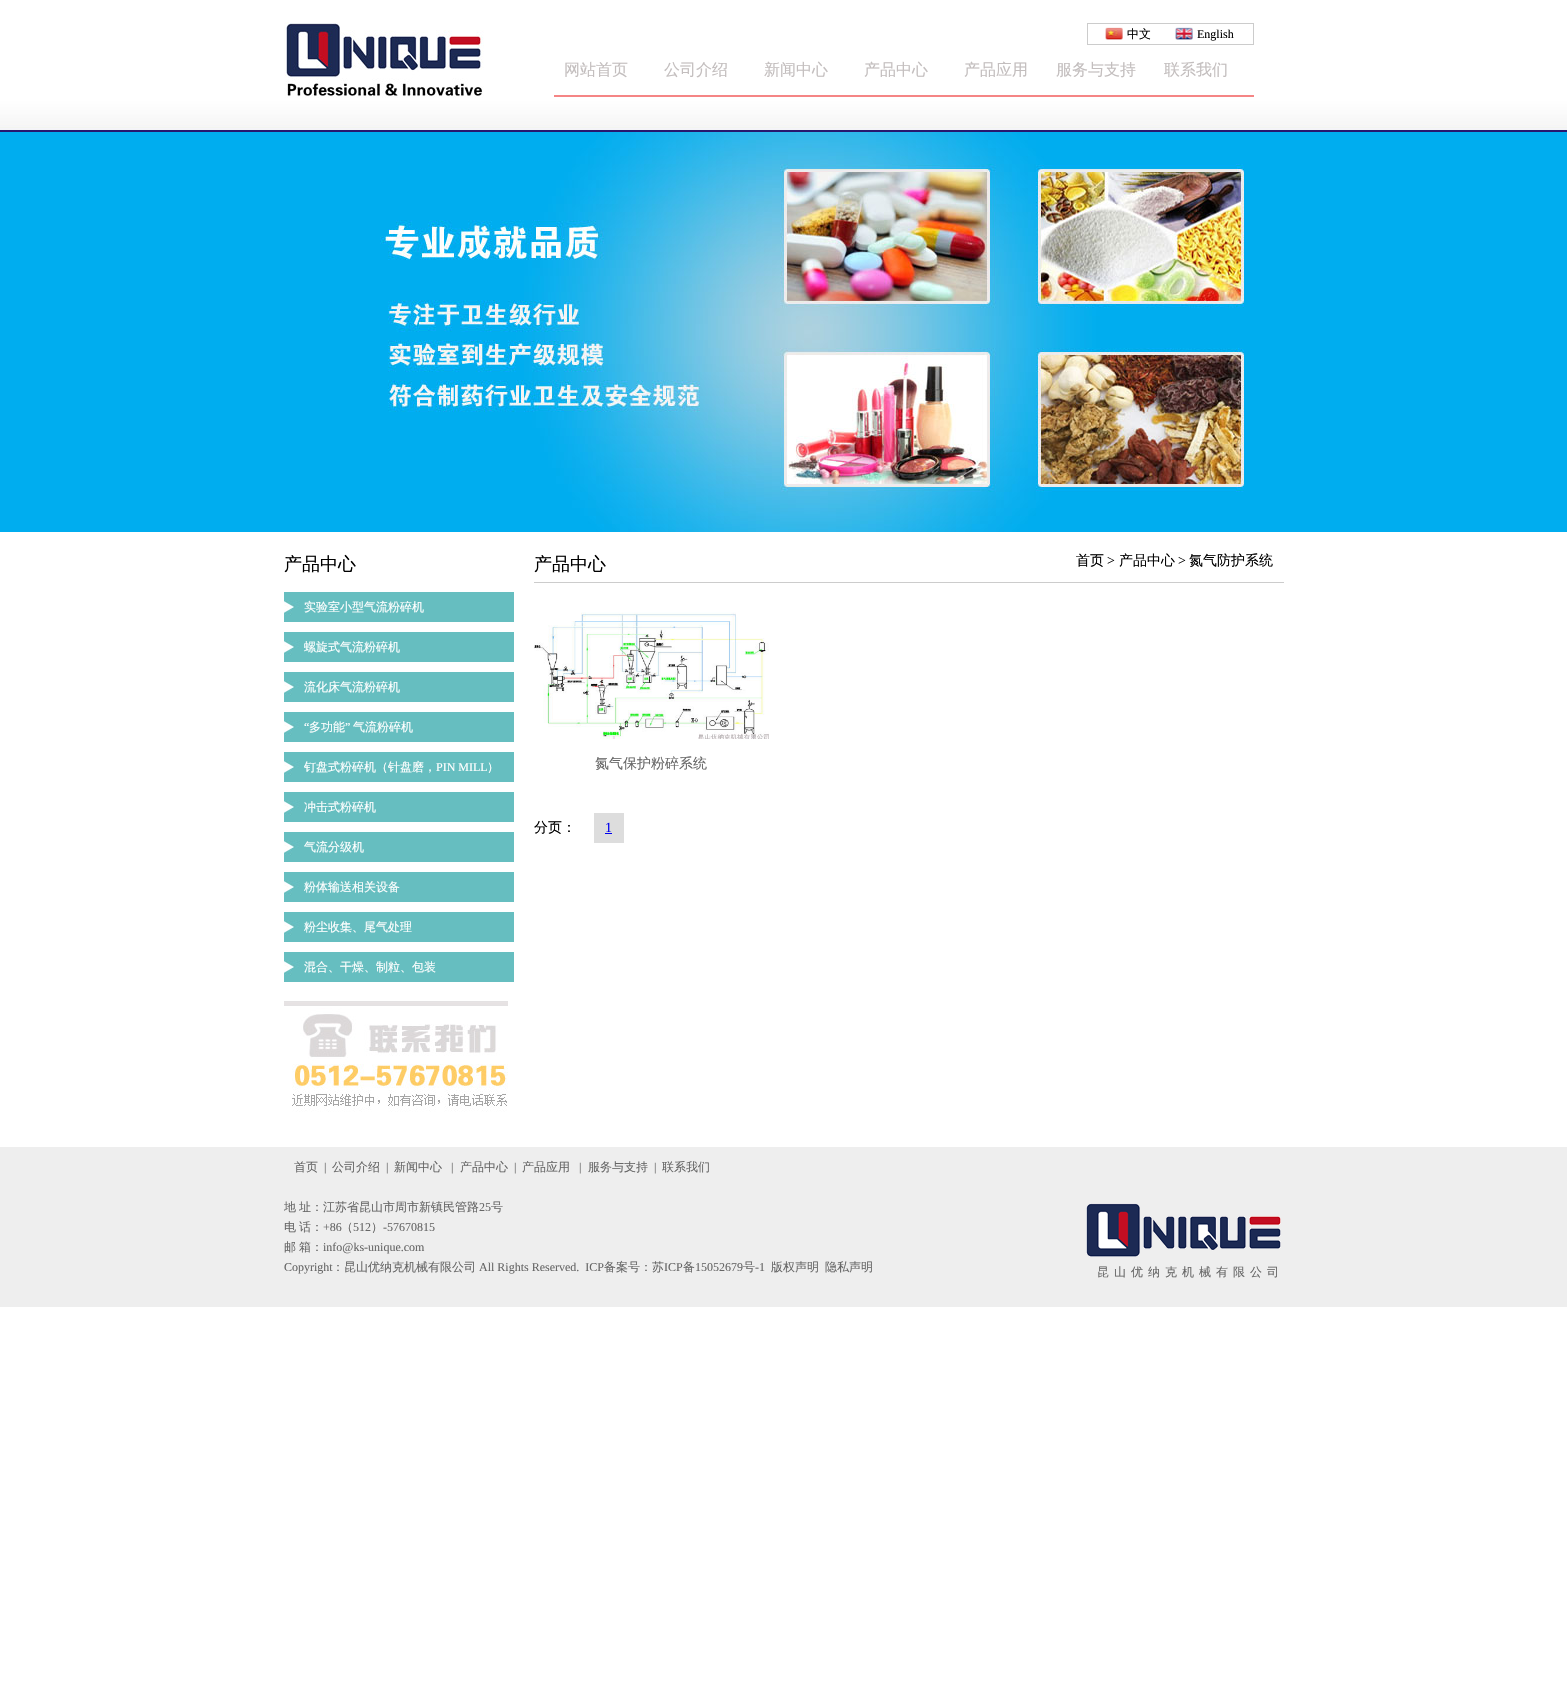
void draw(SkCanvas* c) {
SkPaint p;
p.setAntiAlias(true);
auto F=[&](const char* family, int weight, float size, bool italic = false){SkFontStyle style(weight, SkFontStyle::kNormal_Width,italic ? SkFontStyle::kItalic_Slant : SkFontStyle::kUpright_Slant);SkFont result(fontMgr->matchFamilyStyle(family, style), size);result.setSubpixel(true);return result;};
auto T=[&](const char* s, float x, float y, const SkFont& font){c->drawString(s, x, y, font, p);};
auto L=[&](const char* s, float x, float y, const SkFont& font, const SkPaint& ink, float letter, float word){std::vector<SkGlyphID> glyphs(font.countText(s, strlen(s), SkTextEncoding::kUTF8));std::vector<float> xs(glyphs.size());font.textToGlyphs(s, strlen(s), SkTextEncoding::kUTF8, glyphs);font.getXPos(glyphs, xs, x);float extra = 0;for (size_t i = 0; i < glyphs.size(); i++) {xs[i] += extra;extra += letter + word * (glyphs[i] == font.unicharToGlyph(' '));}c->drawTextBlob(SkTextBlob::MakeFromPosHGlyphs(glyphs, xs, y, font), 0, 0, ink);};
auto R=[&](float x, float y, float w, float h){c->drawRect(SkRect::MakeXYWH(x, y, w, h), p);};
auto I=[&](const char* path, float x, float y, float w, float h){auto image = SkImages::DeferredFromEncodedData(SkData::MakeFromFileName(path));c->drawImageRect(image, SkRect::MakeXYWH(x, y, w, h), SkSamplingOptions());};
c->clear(0xffffffff);
I("1.png",284,22,200,76);
p.setStroke(true);
p.setStrokeWidth(1);
p.setColor(0xffcccccc);
c->drawRect(SkRect::MakeXYWH(1087.5,23.5,166,21),p);
I("2.png",1105,27,18,13);
auto f1 = F("WenQuanYi Zen Hei",500,12);
p.setStroke(false);
p.setColor(0xff000000);
T("中文",1127,38,f1);
I("3.png",1175,27,18,13);
auto f2 = F("Liberation Serif",400,12);
T("English",1197,38,f2);
p.setColor(0xfff58585);
R(554,95,700,2);
auto f3 = F("WenQuanYi Zen Hei",500,16);
p.setColor(0xffc3bebe);
T("网站首页",564,75,f3);
T("公司介绍",664,75,f3);
T("新闻中心",764,75,f3);
T("产品中心",864,75,f3);
T("产品应用",964,75,f3);
T("服务与支持",1056,75,f3);
T("联系我们",1164,75,f3);
I("4.png",0,100,1567,32);
p.setColor(0xff00adef);
R(0,132,1567,400);
I("5.png",380,132,864,400);
auto f4 = F("WenQuanYi Zen Hei",500,18);
p.setColor(0xff000000);
T("产品中心",284,570,f4);
I("6.png",284,592,230,30);
p.setColor(0xffffffff);
T("实验室小型气流粉碎机",304,611,f1);
I("6.png",284,632,230,30);
T("螺旋式气流粉碎机",304,651,f1);
I("6.png",284,672,230,30);
T("流化床气流粉碎机",304,691,f1);
I("6.png",284,712,230,30);
T("“",304,731,f2);
T("多功能",309,731,f1);
T("”",345,731,f2);
T("气流粉碎机",353,731,f1);
I("6.png",284,752,230,30);
T("钉盘式粉碎机（针盘磨，",304,771,f1);
T("PIN MILL",436,771,f2);
T("）",487,771,f1);
I("6.png",284,792,230,30);
T("冲击式粉碎机",304,811,f1);
I("6.png",284,832,230,30);
T("气流分级机",304,851,f1);
I("6.png",284,872,230,30);
T("粉体输送相关设备",304,891,f1);
I("6.png",284,912,230,30);
T("粉尘收集、尾气处理",304,931,f1);
I("6.png",284,952,230,30);
T("混合、干燥、制粒、包装",304,971,f1);
I("7.png",284,1001,224,111);
p.setColor(0xffcccccc);
R(534,582,750,1);
p.setColor(0xff000000);
T("产品中心",534,570,f4);
auto f5 = F("WenQuanYi Zen Hei",500,14);
T("首页",1076,565,f5);
auto f6 = F("Liberation Serif",400,14);
T(">",1107,565,f6);
T("产品中心",1119,565,f5);
T(">",1178,565,f6);
T("氮气防护系统",1189,565,f5);
I("8.png",534,612,235,127);
p.setColor(0xff666666);
T("氮气保护粉碎系统",595,768,f5);
p.setColor(0xff000000);
T("分页：",534,832,f5);
p.setColor(0xffdddddd);
R(594,813,30,30);
p.setColor(0xff0000ee);
T("1",605,832,f6);
R(605,833,7,1);
p.setColor(0xffeeeeee);
R(0,1147,1567,160);
p.setColor(0xff666666);
T("首页",294,1171,f1);
T("|",324,1171,f2);
T("公司介绍",332,1171,f1);
T("|",386,1171,f2);
T("新闻中心",394,1171,f1);
T("|",451,1171,f2);
T("产品中心",460,1171,f1);
T("|",514,1171,f2);
T("产品应用",522,1171,f1);
T("|",579,1171,f2);
T("服务与支持",588,1171,f1);
T("|",654,1171,f2);
T("联系我们",662,1171,f1);
T("地",284,1211,f1);
T("址：江苏省昆山市周市新镇民管路",299,1211,f1);
T("25",479,1211,f2);
T("号",491,1211,f1);
T("电",284,1231,f1);
T("话：",299,1231,f1);
T("+86",323,1231,f2);
T("（",341,1231,f1);
T("512",353,1231,f2);
T("）",371,1231,f1);
T("-57670815",383,1231,f2);
T("邮",284,1251,f1);
T("箱：",299,1251,f1);
T("info@ks-unique.com",323,1251,f2);
T("Copyright",284,1271,f2);
T("：昆山优纳克机械有限公司",332,1271,f1);
T("All Rights Reserved.  ICP",479,1271,f2);
T("备案号：苏",604,1271,f1);
T("ICP",664,1271,f2);
T("备",683,1271,f1);
T("15052679",695,1271,f2);
T("号",743,1271,f1);
T("-1",755,1271,f2);
T("版权声明",771,1271,f1);
T("隐私声明",825,1271,f1);
I("9.png",1086,1203,195,54);
L("昆山优纳克机械有限公司",1097,1276,f1,p,5,0);
}
